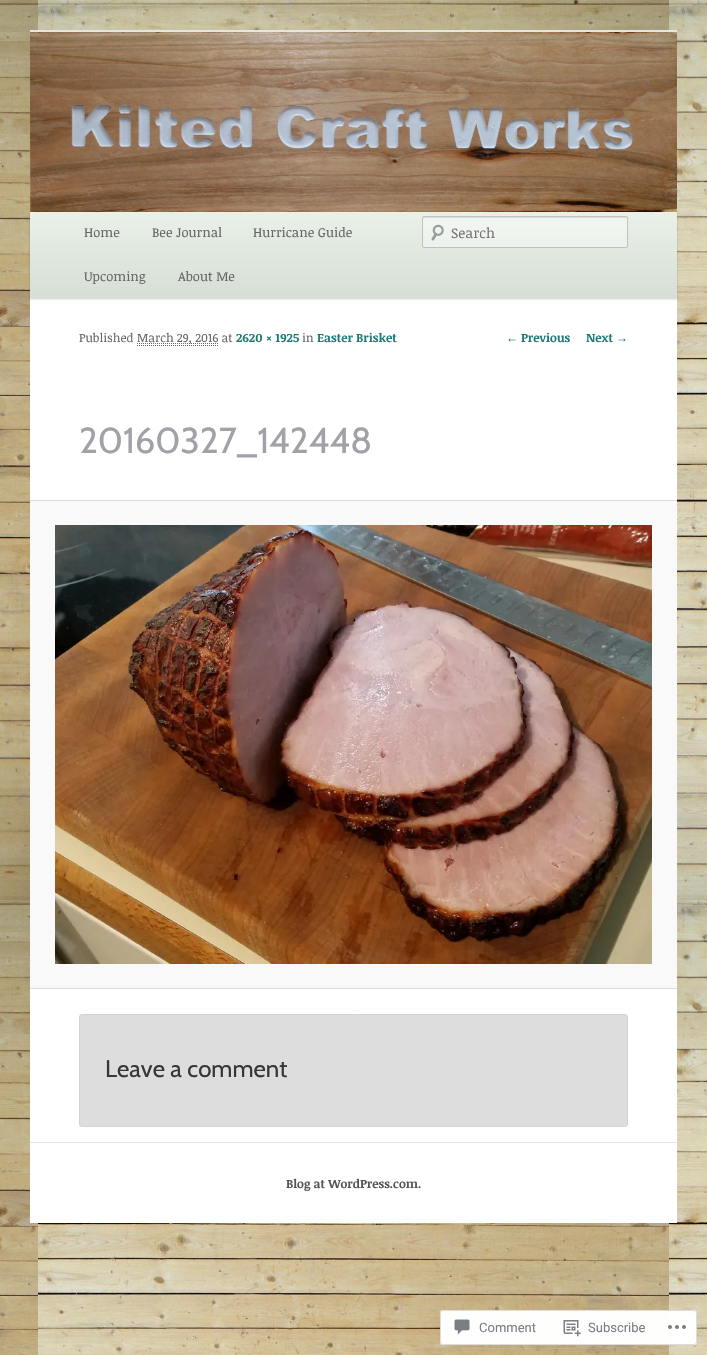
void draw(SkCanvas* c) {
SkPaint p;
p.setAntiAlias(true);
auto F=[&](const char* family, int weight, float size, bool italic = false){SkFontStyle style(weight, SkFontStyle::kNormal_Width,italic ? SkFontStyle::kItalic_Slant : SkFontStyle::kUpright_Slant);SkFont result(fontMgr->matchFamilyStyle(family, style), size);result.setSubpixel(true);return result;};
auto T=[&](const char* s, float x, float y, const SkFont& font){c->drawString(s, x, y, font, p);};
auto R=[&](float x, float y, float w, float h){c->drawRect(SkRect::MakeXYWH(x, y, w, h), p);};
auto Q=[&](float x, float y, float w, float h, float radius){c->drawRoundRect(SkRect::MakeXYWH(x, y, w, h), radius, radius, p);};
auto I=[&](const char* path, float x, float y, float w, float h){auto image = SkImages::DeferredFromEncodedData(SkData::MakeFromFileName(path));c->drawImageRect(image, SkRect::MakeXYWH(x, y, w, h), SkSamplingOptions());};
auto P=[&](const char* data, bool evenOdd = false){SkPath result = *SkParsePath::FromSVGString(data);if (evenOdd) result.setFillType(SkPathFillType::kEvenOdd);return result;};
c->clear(0xffffffff);
I("1.png",0,0,707,1355);
p.setColor(0xffffffff);
R(30,298,647,925);
p.setColor(0xffe5e5e5);
R(30,30,647,2);
p.setColor(0x33000000);
p.setMaskFilter(SkMaskFilter::MakeBlur(kNormal_SkBlurStyle, 1));
c->drawRect(SkRect::MakeXYWH(30,212,647,87),p);
p.setMaskFilter(nullptr);
I("2.png",30,32,647,180);
{
const SkColor colors[] = {0xffeaf1e9,0xffd7ded6};
const float stops[] = {0,1};
const SkPoint ends[] = {{354,211}, {354,298}};
p.setShader(SkGradientShader::MakeLinear(ends, colors, stops, 2, SkTileMode::kClamp));
p.setAlpha(255);
}
R(30,212,647,86);
auto f1 = F("Noticia Text",400,13);
p.setShader(nullptr);
p.setColor(0xff666666);
T("Home",84,237,f1);
T("Bee Journal",152,237,f1);
T("Hurricane Guide",253,237,f1);
T("Upcoming",84,281,f1);
T("About Me",178,281,f1);
p.setColor(0x66ffffff);
Q(422,216,206,32,2);
I("3.png",431,224,13,17);
p.setColor(0xffdaddd9);
c->drawPath(P("M424 218h203v1c0-1 0-2-1-2h-202h-1v2c0-1 0-1 1-1z"),p);
p.setStroke(true);
p.setStrokeWidth(1);
p.setColor(0x33000000);
c->drawRoundRect(SkRect::MakeXYWH(422.5,216.5,205,31),1.5,1.5,p);
auto f2 = F("Noticia Text",400,14);
p.setStroke(false);
p.setColor(0xff757575);
T("Search",451,238,f2);
auto f3 = F("Noticia Text",400,12);
p.setColor(0xff666666);
T("Published",79,342,f3);
p.setStroke(true);
p.setPathEffect(SkDashPathEffect::Make({{1,1}}, 0));
c->drawPath(P("M137 343.5h81"),p);
p.setPathEffect(nullptr);
p.setStroke(false);
T("March 29, 2016 at",137,342,f3);
p.setStroke(true);
p.setPathEffect(SkDashPathEffect::Make({{1,1}}, 0));
c->drawPath(P("M137 345.5h81"),p);
p.setPathEffect(nullptr);
auto f4 = F("Noticia Text",700,12);
p.setStroke(false);
p.setColor(0xff1f7976);
T("2620 × 1925",236,342,f4);
p.setColor(0xff666666);
T("in",302,342,f3);
p.setColor(0xff1f7976);
T("Easter Brisket",317,342,f4);
auto f5 = F("Cabin",400,36);
p.setColor(0xffa1a2a7);
T("20160327_142448",79,453,f5);
p.setColor(0xfff9f9f9);
R(30,501,647,487);
p.setColor(0xffdddddd);
R(30,500,647,1);
R(30,988,647,1);
I("4.png",55,525,597,439);
auto f6 = F("Liberation Serif",700,12);
p.setColor(0xff1f7976);
T("←",506,342,f6);
T("Previous",521,342,f4);
T("Next",586,342,f4);
T("→",616,342,f6);
p.setColor(0xffdddddd);
c->drawRoundRect(SkRect::MakeXYWH(79.5,1014.5,548,112),2.5,2.5,p);
p.setStroke(true);
p.setColor(0xffd3d3d3);
c->drawRoundRect(SkRect::MakeXYWH(79.5,1014.5,548,112),2.5,2.5,p);
auto f7 = F("Cabin",400,24);
p.setStroke(false);
p.setColor(0xff373737);
T("Leave a comment",105,1077,f7);
p.setColor(0xffe6e6e6);
R(30,1142,647,1);
p.setColor(0xff555555);
T("Blog at WordPress.com.",286,1188,f4);
p.setColor(0xfaffffff);
Q(440,1310,257,35,3);
p.setStroke(true);
p.setColor(0xfadcdcde);
c->drawRoundRect(SkRect::MakeXYWH(440.5,1310.5,256,34),2.5,2.5,p);
I("5.png",454,1319,16,16);
auto f8 = F("Roboto",400,13);
p.setStroke(false);
p.setColor(0xff7b7f84);
T("Comment",479,1332,f8);
I("6.png",563,1320,18,17);
T("Subscribe",588,1332,f8);
I("7.png",668,1325,18,4);
}
